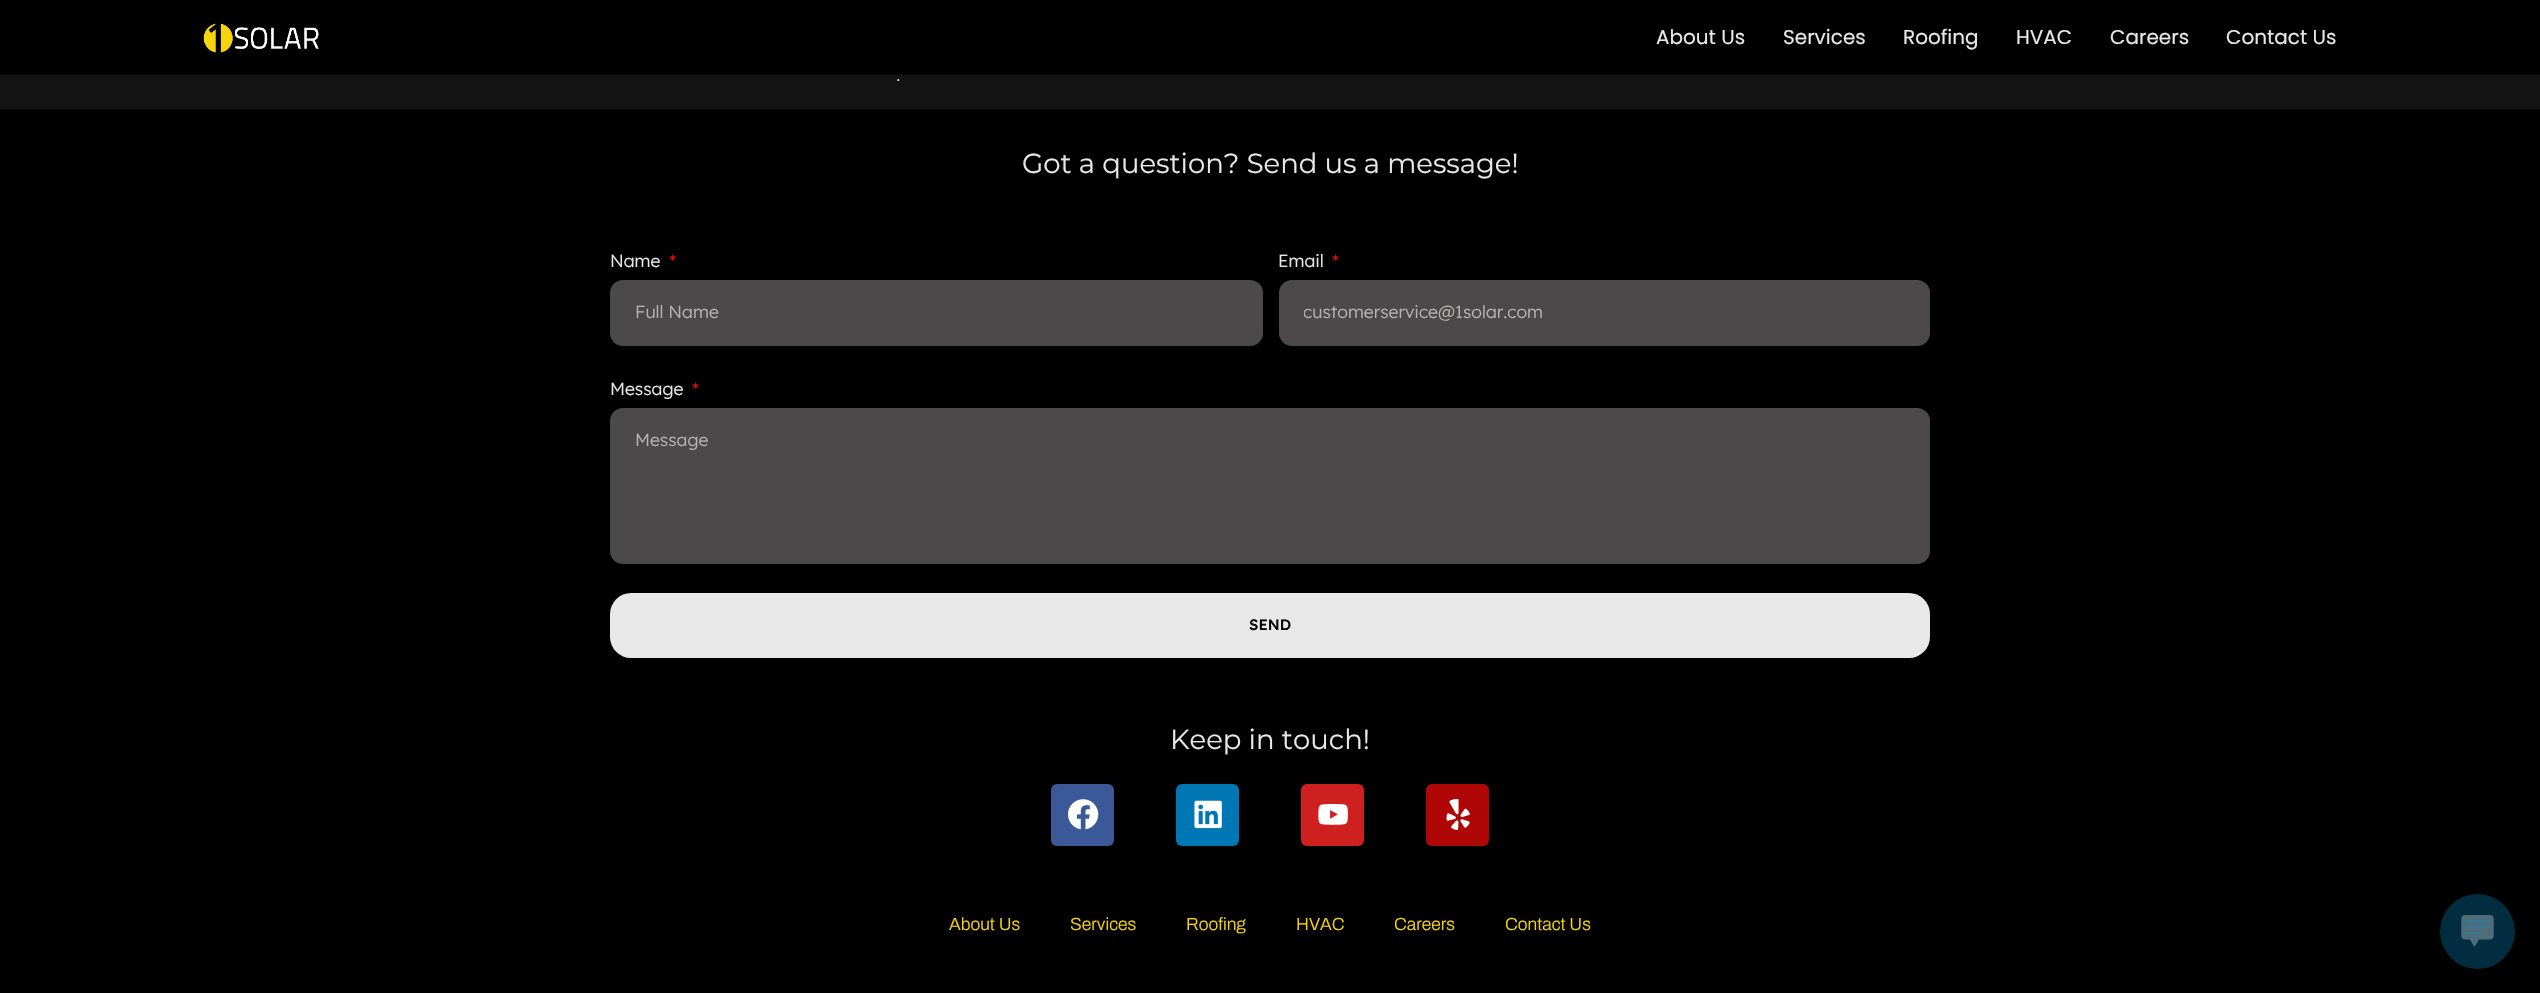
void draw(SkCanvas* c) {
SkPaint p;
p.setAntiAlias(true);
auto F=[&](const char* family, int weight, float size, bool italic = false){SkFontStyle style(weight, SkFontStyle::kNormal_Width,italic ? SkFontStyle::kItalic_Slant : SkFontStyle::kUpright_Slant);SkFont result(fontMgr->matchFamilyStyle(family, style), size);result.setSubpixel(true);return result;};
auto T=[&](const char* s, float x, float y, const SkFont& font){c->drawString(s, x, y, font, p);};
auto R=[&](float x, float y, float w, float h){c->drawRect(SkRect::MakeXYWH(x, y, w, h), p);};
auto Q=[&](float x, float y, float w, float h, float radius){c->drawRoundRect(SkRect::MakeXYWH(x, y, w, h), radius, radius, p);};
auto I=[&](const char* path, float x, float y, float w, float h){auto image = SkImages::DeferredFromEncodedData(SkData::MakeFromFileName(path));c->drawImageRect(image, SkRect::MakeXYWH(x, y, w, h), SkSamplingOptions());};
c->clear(0xff131313);
p.setColor(0xff000000);
R(0,0,2540,75);
I("1.png",203,23,116,30);
auto f1 = F("Poppins",400,20);
p.setColor(0xffe8e8e8);
T("About Us",1656,44,f1);
T("Services",1783,44,f1);
T("Roofing",1903,44,f1);
T("HVAC",2016,44,f1);
T("Careers",2110,44,f1);
T("Contact Us",2226,44,f1);
auto f2 = F("Archivo",300,17.5);
p.setColor(0xfffefefe);
T(".",896,81,f2);
p.setColor(0xff000000);
R(0,109,2540,884);
auto f3 = F("Montserrat",400,27.5);
p.setColor(0xffe8e8e8);
T("Got a question? Send us a message!",1022,173,f3);
auto f4 = F("Lexend",300,17.5);
T("Name",610,267,f4);
p.setColor(0xffff0000);
T("*",669,267,f4);
p.setColor(0xff4b4949);
Q(610,280,653,66,13);
p.setColor(0xffb7b3b3);
T("Full Name",635,318,f4);
p.setColor(0xffe8e8e8);
T("Email",1278,267,f4);
p.setColor(0xffff0000);
T("*",1332,267,f4);
p.setColor(0xff4b4949);
Q(1279,280,651,66,13);
c->save();
c->clipRect(SkRect::MakeXYWH(1304,301,601,23));
p.setColor(0xffb7b3b3);
T("customerservice@1solar.com",1303,318,f4);
c->restore();
p.setColor(0xffe8e8e8);
T("Message",610,395,f4);
p.setColor(0xffff0000);
T("*",692,395,f4);
p.setColor(0xff4b4949);
Q(610,408,1320,156,13);
p.setColor(0xffb7b3b3);
T("Message",635,446,f4);
p.setColor(0xffe8e8e8);
Q(610,593,1320,65,21);
auto f5 = F("Lexend",500,15);
p.setColor(0xff000000);
T("SEND",1249,630,f5);
p.setColor(0xffe8e8e8);
T("Keep in touch!",1170,749,f3);
p.setColor(0xff3b5998);
Q(1051,784,63,62,6);
I("2.png",1068,799,31,31);
p.setColor(0xff0077b5);
Q(1176,784,63,62,6);
I("3.png",1194,800,28,29);
p.setColor(0xffcd201f);
Q(1301,784,63,62,6);
I("4.png",1318,803,30,22);
p.setColor(0xffaf0606);
Q(1426,784,63,62,6);
I("5.png",1446,799,24,31);
p.setColor(0xfff8d50f);
T("About Us",949,930,f2);
T("Services",1070,930,f2);
T("Roofing",1186,930,f2);
T("HVAC",1296,930,f2);
T("Careers",1394,930,f2);
T("Contact Us",1505,930,f2);
p.setColor(0xff022d40);
c->drawCircle(2477.5,931.5,37.5,p);
I("6.png",2461,915,33,32);
}
